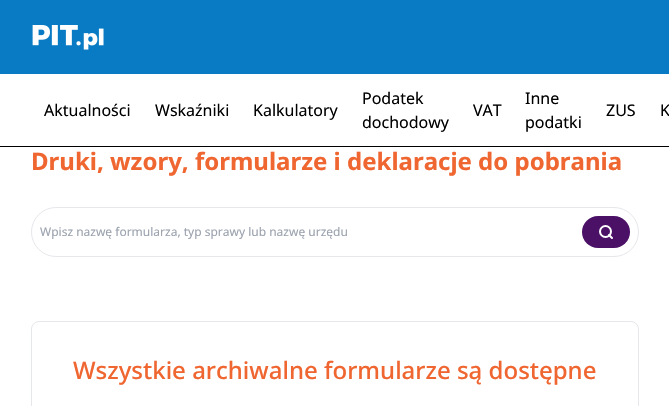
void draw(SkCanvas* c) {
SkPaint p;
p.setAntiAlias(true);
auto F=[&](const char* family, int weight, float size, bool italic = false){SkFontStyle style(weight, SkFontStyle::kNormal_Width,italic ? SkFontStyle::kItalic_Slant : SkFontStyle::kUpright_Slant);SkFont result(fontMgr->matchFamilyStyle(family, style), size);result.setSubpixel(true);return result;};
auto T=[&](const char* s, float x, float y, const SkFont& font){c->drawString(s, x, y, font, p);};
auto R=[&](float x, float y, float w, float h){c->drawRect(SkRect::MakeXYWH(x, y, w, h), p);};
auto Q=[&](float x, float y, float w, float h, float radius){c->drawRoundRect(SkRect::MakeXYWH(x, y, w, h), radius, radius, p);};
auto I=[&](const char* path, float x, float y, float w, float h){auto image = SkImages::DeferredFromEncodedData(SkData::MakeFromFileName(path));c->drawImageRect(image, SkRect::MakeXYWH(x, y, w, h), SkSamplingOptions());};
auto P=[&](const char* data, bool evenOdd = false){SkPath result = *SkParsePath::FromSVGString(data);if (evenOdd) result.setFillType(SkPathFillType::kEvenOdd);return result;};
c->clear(0xffffffff);
p.setColor(0xff097bc4);
R(0,0,669,74);
I("1.png",32,25,72,25);
p.setColor(0xff000000);
R(0,146,669,1);
auto f1 = F("Noto Sans",400,16);
T("Aktualności",44,116,f1);
T("Wskaźniki",155,116,f1);
T("Kalkulatory",253,116,f1);
T("Podatek",362,104,f1);
T("dochodowy",362,128,f1);
T("VAT",473,116,f1);
T("Inne",525,104,f1);
T("podatki",525,128,f1);
T("ZUS",606,116,f1);
T("K",660,116,f1);
auto f2 = F("Noto Sans",700,24);
p.setColor(0xffef6631);
T("Druki, wzory, formularze i deklaracje do pobrania",31,170,f2);
p.setStroke(true);
p.setStrokeWidth(1);
p.setColor(0xffe5e7eb);
c->drawRoundRect(SkRect::MakeXYWH(31.5,207.5,607,49),24.5,24.5,p);
auto f3 = F("Noto Sans",400,12);
p.setStroke(false);
p.setColor(0xff9ca3af);
T("Wpisz nazwę formularza, typ sprawy lub nazwę urzędu",40,236,f3);
p.setColor(0xff4b1166);
Q(582,216,48,32,16);
p.setStroke(true);
p.setStrokeWidth(2);
p.setColor(0xffffffff);
c->drawCircle(605.5,231.5,5.5,p);
p.setStrokeCap(SkPaint::kRound_Cap);
p.setStrokeJoin(SkPaint::kRound_Join);
c->drawPath(P("M612 238l-3-3"),p);
p.setStrokeWidth(1);
p.setStrokeCap(SkPaint::kButt_Cap);
p.setStrokeJoin(SkPaint::kMiter_Join);
p.setColor(0xffe5e7eb);
c->drawRoundRect(SkRect::MakeXYWH(31.5,321.5,607,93),7.5,7.5,p);
auto f4 = F("Noto Sans",500,24);
p.setStroke(false);
p.setColor(0xffef6631);
T("Wszystkie archiwalne formularze są dostępne",73,379,f4);
}
